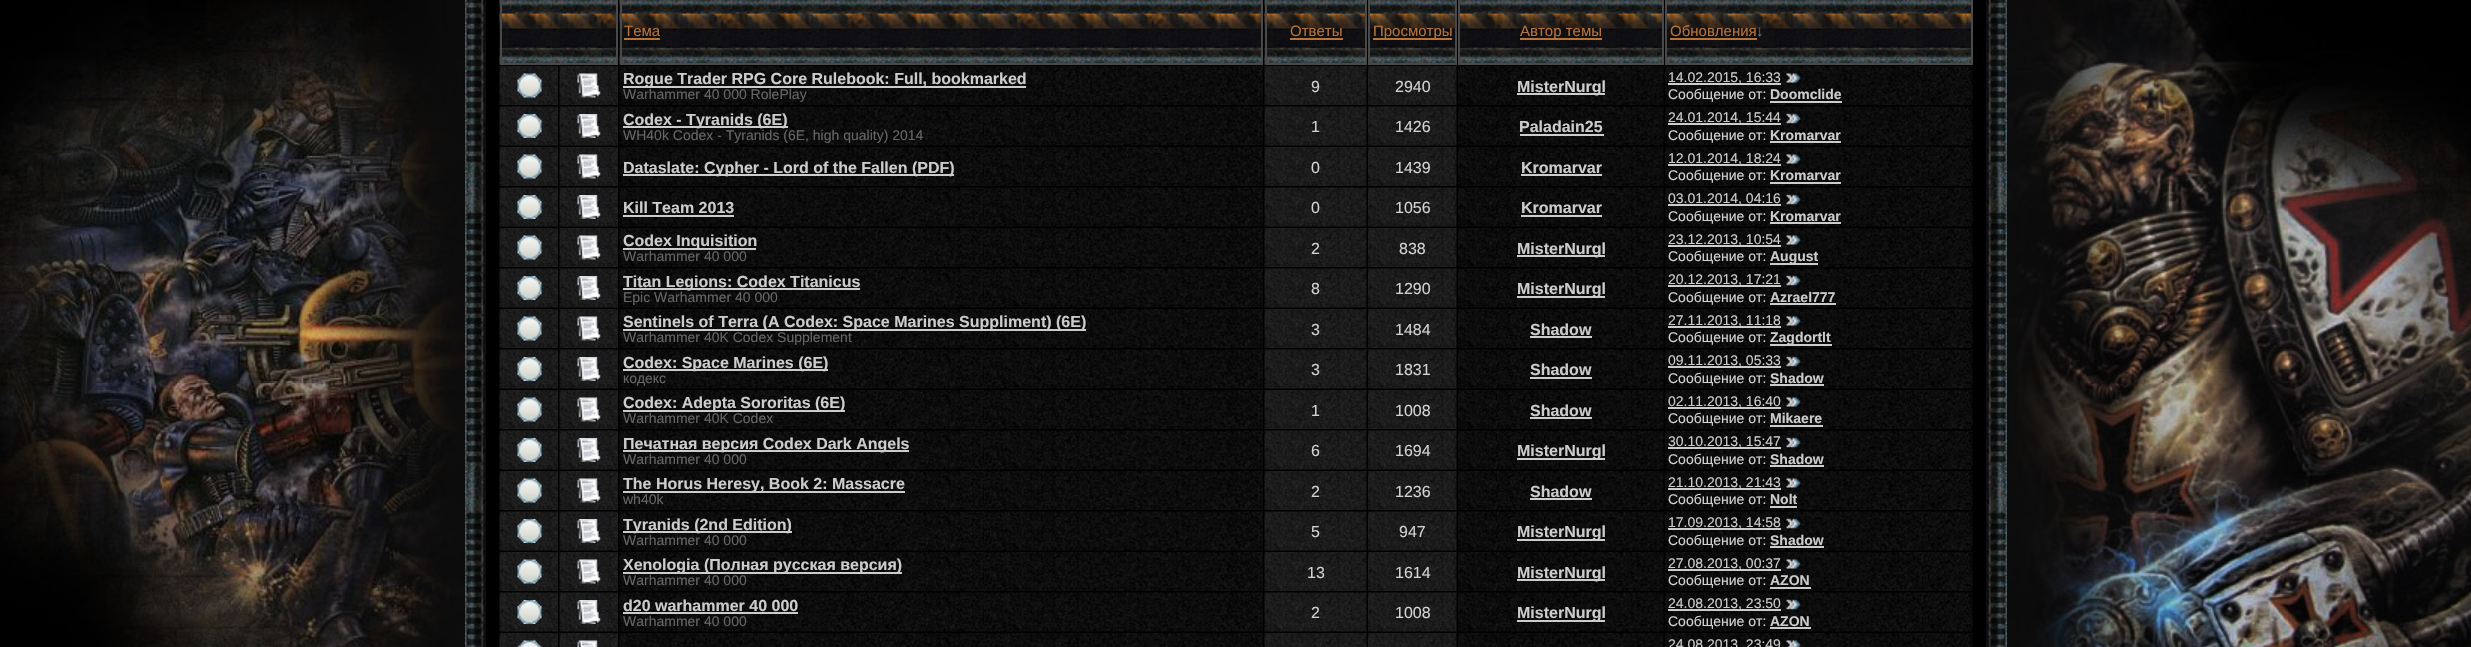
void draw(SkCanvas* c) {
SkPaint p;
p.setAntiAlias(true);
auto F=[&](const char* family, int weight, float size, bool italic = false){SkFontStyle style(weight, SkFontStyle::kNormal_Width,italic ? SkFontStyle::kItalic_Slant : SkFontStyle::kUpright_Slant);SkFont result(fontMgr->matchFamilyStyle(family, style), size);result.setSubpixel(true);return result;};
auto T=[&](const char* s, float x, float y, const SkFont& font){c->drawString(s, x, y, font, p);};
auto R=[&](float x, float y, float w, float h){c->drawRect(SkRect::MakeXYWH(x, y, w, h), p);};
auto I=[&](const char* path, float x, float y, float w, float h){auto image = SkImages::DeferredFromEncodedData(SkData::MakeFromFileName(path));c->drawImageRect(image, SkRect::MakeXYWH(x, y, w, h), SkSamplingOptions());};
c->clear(0xffffffff);
I("1.png",0,0,2471,647);
I("2.png",465,0,21,647);
I("3.png",465,198,17,300);
p.setColor(0xff000000);
R(486,0,1500,647);
I("4.png",499,0,117,65);
p.setStroke(true);
p.setStrokeWidth(2);
p.setColor(0xff494949);
c->drawRect(SkRect::MakeXYWH(501,-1,116,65),p);
I("5.png",619,0,642,65);
c->drawRect(SkRect::MakeXYWH(621,-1,641,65),p);
auto f1 = F("Liberation Sans",400,15);
p.setStroke(false);
p.setColor(0xffba7337);
T("Тема",624,36,f1);
R(624,38,36,2);
I("6.png",1264,0,101,65);
p.setStroke(true);
p.setColor(0xff494949);
c->drawRect(SkRect::MakeXYWH(1266,-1,100,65),p);
p.setStroke(false);
p.setColor(0xffba7337);
T("Ответы",1290,36,f1);
R(1290,38,53,2);
I("7.png",1370,0,85,63);
p.setStroke(true);
p.setColor(0xff494949);
c->drawRect(SkRect::MakeXYWH(1369,-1,87,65),p);
p.setStroke(false);
p.setColor(0xffba7337);
R(1373,38,79,2);
T("Просмотры",1373,36,f1);
I("8.png",1460,0,202,63);
p.setStroke(true);
p.setColor(0xff494949);
c->drawRect(SkRect::MakeXYWH(1459,-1,204,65),p);
p.setStroke(false);
p.setColor(0xffba7337);
R(1520,38,82,2);
T("Автор темы",1520,36,f1);
I("9.png",1667,0,304,63);
p.setStroke(true);
p.setColor(0xff494949);
c->drawRect(SkRect::MakeXYWH(1666,-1,306,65),p);
p.setStroke(false);
p.setColor(0xffba7337);
T("Обновления",1670,36,f1);
R(1670,38,87,2);
p.setColor(0xff767676);
T("↓",1756,36,f1);
I("10.png",499,66,59,39);
I("11.png",517,73,25,25);
I("10.png",559,66,59,39);
I("12.png",577,73,24,25);
I("13.png",619,66,644,39);
p.setColor(0xffcccccc);
R(623,86,403,2);
auto f2 = F("Liberation Sans",700,16);
T("Rogue Trader RPG Core Rulebook: Full, bookmarked",623,84,f2);
auto f3 = F("Liberation Sans",400,14);
p.setColor(0xff666666);
T("Warhammer 40 000 RolePlay",623,99,f3);
I("14.png",1264,66,103,39);
auto f4 = F("Liberation Sans",400,16);
p.setColor(0xffd2d2d2);
T("9",1311,92,f4);
I("15.png",1368,66,89,39);
T("2940",1395,92,f4);
I("16.png",1458,66,206,39);
p.setColor(0xffcccccc);
R(1517,93,88,2);
T("MisterNurgl",1517,92,f2);
I("17.png",1665,66,308,39);
R(1668,83,113,2);
T("14.02.2015, 16:33",1668,82,f3);
I("18.png",1786,73,15,10);
p.setColor(0xffd2d2d2);
T("Сообщение от:",1668,99,f3);
auto f5 = F("Liberation Sans",700,14);
p.setColor(0xffcccccc);
T("Doomclide",1770,99,f5);
R(1770,101,72,2);
I("19.png",499,106,59,40);
I("20.png",517,114,25,24);
I("19.png",559,106,59,40);
I("21.png",577,114,24,24);
I("22.png",619,106,644,40);
R(623,126,165,2);
T("Codex - Tyranids (6E)",623,125,f2);
p.setColor(0xff666666);
T("WH40k Codex - Tyranids (6E, high quality) 2014",623,140,f3);
I("23.png",1264,106,103,40);
p.setColor(0xffd2d2d2);
T("1",1311,132,f4);
I("24.png",1368,106,89,40);
T("1426",1395,132,f4);
I("25.png",1458,106,206,40);
p.setColor(0xffcccccc);
T("Paladain25",1519,132,f2);
R(1520,134,84,2);
I("26.png",1665,106,308,40);
R(1668,123,113,2);
T("24.01.2014, 15:44",1668,122,f3);
I("27.png",1786,113,15,11);
p.setColor(0xffd2d2d2);
T("Сообщение от:",1668,140,f3);
p.setColor(0xffcccccc);
T("Kromarvar",1770,140,f5);
R(1770,141,71,2);
I("10.png",499,147,59,39);
I("11.png",517,154,25,25);
I("10.png",559,147,59,39);
I("12.png",577,154,24,25);
I("28.png",619,147,644,39);
R(623,174,331,2);
T("Dataslate: Cypher - Lord of the Fallen (PDF)",623,173,f2);
I("14.png",1264,147,103,39);
p.setColor(0xffd2d2d2);
T("0",1311,173,f4);
I("15.png",1368,147,89,39);
T("1439",1395,173,f4);
I("16.png",1458,147,206,39);
p.setColor(0xffcccccc);
T("Kromarvar",1521,173,f2);
R(1521,174,81,2);
I("17.png",1665,147,308,39);
R(1668,164,113,2);
T("12.01.2014, 18:24",1668,163,f3);
I("18.png",1786,154,15,10);
p.setColor(0xffd2d2d2);
T("Сообщение от:",1668,180,f3);
p.setColor(0xffcccccc);
T("Kromarvar",1770,180,f5);
R(1770,182,71,2);
I("19.png",499,187,59,40);
I("20.png",517,195,25,24);
I("19.png",559,187,59,40);
I("21.png",577,195,24,24);
I("29.png",619,187,644,40);
T("Kill Team 2013",623,213,f2);
R(623,215,111,2);
I("23.png",1264,187,103,40);
p.setColor(0xffd2d2d2);
T("0",1311,213,f4);
I("24.png",1368,187,89,40);
T("1056",1395,213,f4);
I("25.png",1458,187,206,40);
p.setColor(0xffcccccc);
T("Kromarvar",1521,213,f2);
R(1521,215,81,2);
I("26.png",1665,187,308,40);
R(1668,204,113,2);
T("03.01.2014, 04:16",1668,203,f3);
I("27.png",1786,194,15,11);
p.setColor(0xffd2d2d2);
T("Сообщение от:",1668,221,f3);
p.setColor(0xffcccccc);
T("Kromarvar",1770,221,f5);
R(1770,222,71,2);
I("10.png",499,228,59,39);
I("11.png",517,235,25,25);
I("10.png",559,228,59,39);
I("12.png",577,235,24,25);
I("30.png",619,228,644,39);
R(623,248,133,2);
T("Codex Inquisition",623,246,f2);
p.setColor(0xff666666);
T("Warhammer 40 000",623,261,f3);
I("14.png",1264,228,103,39);
p.setColor(0xffd2d2d2);
T("2",1311,254,f4);
I("15.png",1368,228,89,39);
T("838",1399,254,f4);
I("16.png",1458,228,206,39);
p.setColor(0xffcccccc);
R(1517,255,88,2);
T("MisterNurgl",1517,254,f2);
I("17.png",1665,228,308,39);
R(1668,245,113,2);
T("23.12.2013, 10:54",1668,244,f3);
I("18.png",1786,235,15,10);
p.setColor(0xffd2d2d2);
T("Сообщение от:",1668,261,f3);
p.setColor(0xffcccccc);
R(1770,263,48,2);
T("August",1770,261,f5);
I("19.png",499,268,59,40);
I("20.png",517,276,25,24);
I("19.png",559,268,59,40);
I("21.png",577,276,24,24);
I("31.png",619,268,644,40);
R(623,288,237,2);
T("Titan Legions: Codex Titanicus",623,287,f2);
p.setColor(0xff666666);
T("Epic Warhammer 40 000",623,302,f3);
I("23.png",1264,268,103,40);
p.setColor(0xffd2d2d2);
T("8",1311,294,f4);
I("24.png",1368,268,89,40);
T("1290",1395,294,f4);
I("25.png",1458,268,206,40);
p.setColor(0xffcccccc);
R(1517,296,88,2);
T("MisterNurgl",1517,294,f2);
I("26.png",1665,268,308,40);
R(1668,285,113,2);
T("20.12.2013, 17:21",1668,284,f3);
I("27.png",1786,275,15,11);
p.setColor(0xffd2d2d2);
T("Сообщение от:",1668,302,f3);
p.setColor(0xffcccccc);
T("Azrael777",1770,302,f5);
R(1770,303,66,2);
I("10.png",499,309,59,39);
I("11.png",517,316,25,25);
I("10.png",559,309,59,39);
I("12.png",577,316,24,25);
I("32.png",619,309,644,39);
R(623,329,463,2);
T("Sentinels of Terra (A Codex: Space Marines Suppliment) (6E)",623,327,f2);
p.setColor(0xff666666);
T("Warhammer 40K Codex Supplement",623,342,f3);
I("14.png",1264,309,103,39);
p.setColor(0xffd2d2d2);
T("3",1311,335,f4);
I("15.png",1368,309,89,39);
T("1484",1395,335,f4);
I("16.png",1458,309,206,39);
p.setColor(0xffcccccc);
T("Shadow",1530,335,f2);
R(1530,336,62,2);
I("17.png",1665,309,308,39);
R(1668,326,113,2);
T("27.11.2013, 11:18",1668,325,f3);
I("18.png",1786,316,15,10);
p.setColor(0xffd2d2d2);
T("Сообщение от:",1668,342,f3);
p.setColor(0xffcccccc);
R(1770,344,62,2);
T("Zagdortlt",1770,342,f5);
I("19.png",499,349,59,40);
I("20.png",517,357,25,24);
I("19.png",559,349,59,40);
I("21.png",577,357,24,24);
I("33.png",619,349,644,40);
R(623,369,205,2);
T("Codex: Space Marines (6E)",623,368,f2);
p.setColor(0xff666666);
T("кодекс",623,383,f3);
I("23.png",1264,349,103,40);
p.setColor(0xffd2d2d2);
T("3",1311,375,f4);
I("24.png",1368,349,89,40);
T("1831",1395,375,f4);
I("25.png",1458,349,206,40);
p.setColor(0xffcccccc);
T("Shadow",1530,375,f2);
R(1530,377,62,2);
I("26.png",1665,349,308,40);
R(1668,366,113,2);
T("09.11.2013, 05:33",1668,365,f3);
I("27.png",1786,356,15,11);
p.setColor(0xffd2d2d2);
T("Сообщение от:",1668,383,f3);
p.setColor(0xffcccccc);
T("Shadow",1770,383,f5);
R(1770,384,54,2);
I("10.png",499,390,59,39);
I("11.png",517,397,25,25);
I("10.png",559,390,59,39);
I("12.png",577,397,24,25);
I("34.png",619,390,644,39);
R(623,410,222,2);
T("Codex: Adepta Sororitas (6E)",623,408,f2);
p.setColor(0xff666666);
T("Warhammer 40K Codex",623,423,f3);
I("14.png",1264,390,103,39);
p.setColor(0xffd2d2d2);
T("1",1311,416,f4);
I("15.png",1368,390,89,39);
T("1008",1395,416,f4);
I("16.png",1458,390,206,39);
p.setColor(0xffcccccc);
T("Shadow",1530,416,f2);
R(1530,417,62,2);
I("17.png",1665,390,308,39);
R(1668,407,113,2);
T("02.11.2013, 16:40",1668,406,f3);
I("18.png",1786,397,15,10);
p.setColor(0xffd2d2d2);
T("Сообщение от:",1668,423,f3);
p.setColor(0xffcccccc);
T("Mikaere",1770,423,f5);
R(1770,425,53,2);
I("19.png",499,430,59,40);
I("20.png",517,438,25,24);
I("19.png",559,430,59,40);
I("21.png",577,438,24,24);
I("35.png",619,430,644,40);
R(623,450,286,2);
T("Печатная версия Codex Dark Angels",623,449,f2);
p.setColor(0xff666666);
T("Warhammer 40 000",623,464,f3);
I("23.png",1264,430,103,40);
p.setColor(0xffd2d2d2);
T("6",1311,456,f4);
I("24.png",1368,430,89,40);
T("1694",1395,456,f4);
I("25.png",1458,430,206,40);
p.setColor(0xffcccccc);
R(1517,458,88,2);
T("MisterNurgl",1517,456,f2);
I("26.png",1665,430,308,40);
R(1668,447,113,2);
T("30.10.2013, 15:47",1668,446,f3);
I("27.png",1786,437,15,11);
p.setColor(0xffd2d2d2);
T("Сообщение от:",1668,464,f3);
p.setColor(0xffcccccc);
T("Shadow",1770,464,f5);
R(1770,465,54,2);
I("10.png",499,471,59,39);
I("11.png",517,478,25,25);
I("10.png",559,471,59,39);
I("12.png",577,478,24,25);
I("36.png",619,471,644,39);
R(623,491,282,2);
T("The Horus Heresy, Book 2: Massacre",623,489,f2);
p.setColor(0xff666666);
T("wh40k",623,504,f3);
I("14.png",1264,471,103,39);
p.setColor(0xffd2d2d2);
T("2",1311,497,f4);
I("15.png",1368,471,89,39);
T("1236",1395,497,f4);
I("16.png",1458,471,206,39);
p.setColor(0xffcccccc);
T("Shadow",1530,497,f2);
R(1530,498,62,2);
I("17.png",1665,471,308,39);
R(1668,488,113,2);
T("21.10.2013, 21:43",1668,487,f3);
I("18.png",1786,478,15,10);
p.setColor(0xffd2d2d2);
T("Сообщение от:",1668,504,f3);
p.setColor(0xffcccccc);
T("Nolt",1770,504,f5);
R(1770,506,27,2);
I("19.png",499,511,59,40);
I("20.png",517,519,25,24);
I("19.png",559,511,59,40);
I("21.png",577,519,24,24);
I("37.png",619,511,644,40);
R(623,531,169,2);
T("Tyranids (2nd Edition)",623,530,f2);
p.setColor(0xff666666);
T("Warhammer 40 000",623,545,f3);
I("23.png",1264,511,103,40);
p.setColor(0xffd2d2d2);
T("5",1311,537,f4);
I("24.png",1368,511,89,40);
T("947",1399,537,f4);
I("25.png",1458,511,206,40);
p.setColor(0xffcccccc);
R(1517,539,88,2);
T("MisterNurgl",1517,537,f2);
I("26.png",1665,511,308,40);
R(1668,528,113,2);
T("17.09.2013, 14:58",1668,527,f3);
I("27.png",1786,518,15,11);
p.setColor(0xffd2d2d2);
T("Сообщение от:",1668,545,f3);
p.setColor(0xffcccccc);
T("Shadow",1770,545,f5);
R(1770,546,54,2);
I("10.png",499,552,59,39);
I("11.png",517,559,25,25);
I("10.png",559,552,59,39);
I("12.png",577,559,24,25);
I("38.png",619,552,644,39);
R(623,572,279,2);
T("Xenologia (Полная русская версия)",623,570,f2);
p.setColor(0xff666666);
T("Warhammer 40 000",623,585,f3);
I("14.png",1264,552,103,39);
p.setColor(0xffd2d2d2);
T("13",1307,578,f4);
I("15.png",1368,552,89,39);
T("1614",1395,578,f4);
I("16.png",1458,552,206,39);
p.setColor(0xffcccccc);
R(1517,579,88,2);
T("MisterNurgl",1517,578,f2);
I("17.png",1665,552,308,39);
R(1668,569,113,2);
T("27.08.2013, 00:37",1668,568,f3);
I("18.png",1786,559,15,10);
p.setColor(0xffd2d2d2);
T("Сообщение от:",1668,585,f3);
p.setColor(0xffcccccc);
T("AZON",1770,585,f5);
R(1770,587,41,2);
I("19.png",499,592,59,40);
I("20.png",517,600,25,24);
I("19.png",559,592,59,40);
I("21.png",577,600,24,24);
I("39.png",619,592,644,40);
T("d20 warhammer 40 000",623,611,f2);
R(623,612,175,2);
p.setColor(0xff666666);
T("Warhammer 40 000",623,626,f3);
I("23.png",1264,592,103,40);
p.setColor(0xffd2d2d2);
T("2",1311,618,f4);
I("24.png",1368,592,89,40);
T("1008",1395,618,f4);
I("25.png",1458,592,206,40);
p.setColor(0xffcccccc);
R(1517,620,88,2);
T("MisterNurgl",1517,618,f2);
I("26.png",1665,592,308,40);
R(1668,609,113,2);
T("24.08.2013, 23:50",1668,608,f3);
I("27.png",1786,599,15,11);
p.setColor(0xffd2d2d2);
T("Сообщение от:",1668,626,f3);
p.setColor(0xffcccccc);
T("AZON",1770,626,f5);
R(1770,627,41,2);
I("40.png",499,633,59,14);
I("41.png",517,640,25,7);
I("40.png",559,633,59,14);
I("42.png",577,640,21,7);
I("43.png",619,633,644,14);
I("44.png",1264,633,103,14);
I("45.png",1368,633,89,14);
I("46.png",1458,633,206,14);
I("47.png",1665,633,308,14);
T("24.08.2013, 23:49",1668,649,f3);
I("48.png",1786,640,15,7);
I("49.png",1986,0,21,647);
I("50.png",1990,198,17,300);
}
